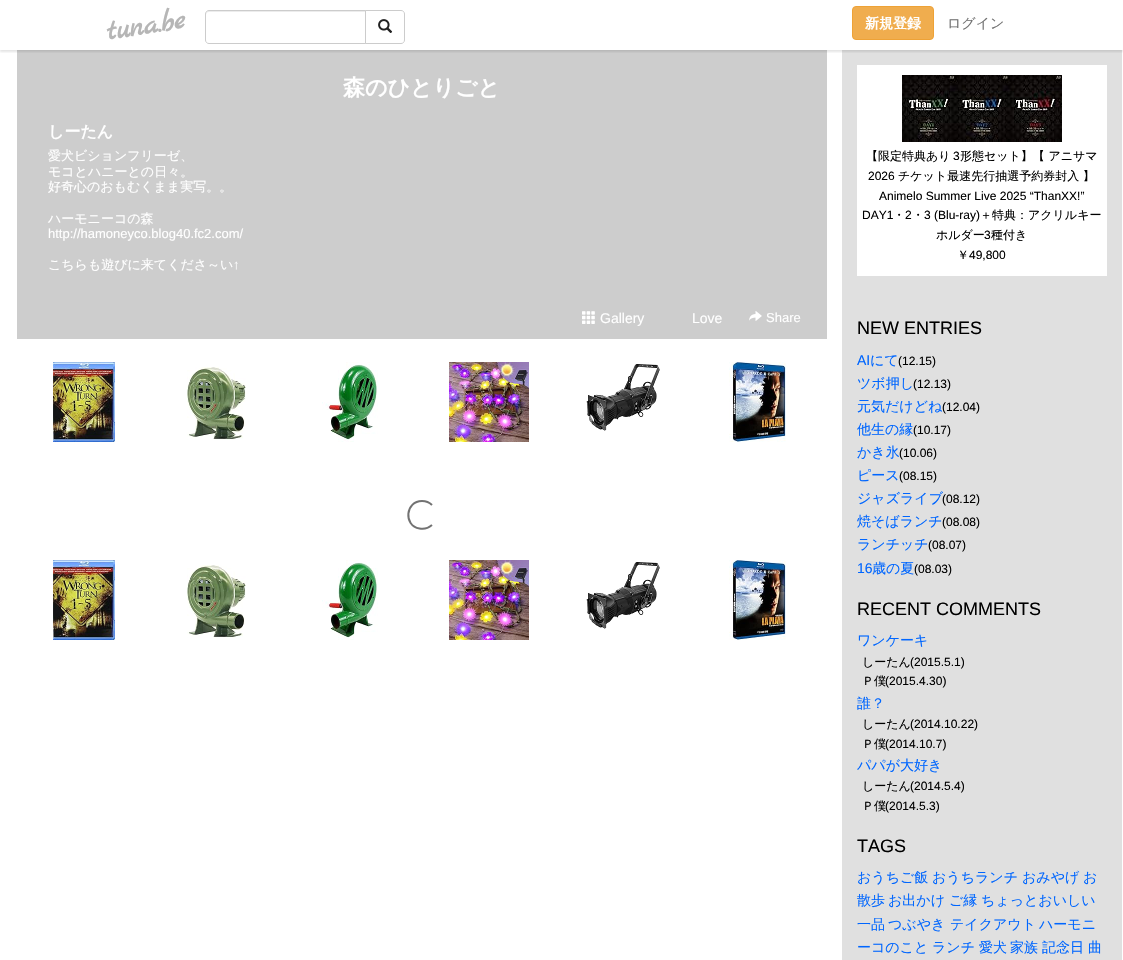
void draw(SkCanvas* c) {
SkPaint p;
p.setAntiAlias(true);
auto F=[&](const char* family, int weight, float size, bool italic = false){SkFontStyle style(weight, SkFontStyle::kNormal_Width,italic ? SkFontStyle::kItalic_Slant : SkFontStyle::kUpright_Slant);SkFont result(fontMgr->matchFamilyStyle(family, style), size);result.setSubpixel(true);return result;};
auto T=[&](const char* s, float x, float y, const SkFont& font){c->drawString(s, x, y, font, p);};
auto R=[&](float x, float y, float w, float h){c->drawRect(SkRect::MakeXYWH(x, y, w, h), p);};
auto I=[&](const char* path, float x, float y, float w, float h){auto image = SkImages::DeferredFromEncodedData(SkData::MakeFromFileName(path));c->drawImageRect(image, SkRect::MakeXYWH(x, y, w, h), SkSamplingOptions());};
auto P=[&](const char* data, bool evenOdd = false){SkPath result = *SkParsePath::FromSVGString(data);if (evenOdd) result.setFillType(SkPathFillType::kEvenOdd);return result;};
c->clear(0xffffffff);
p.setColor(0xffcdcdcd);
R(17,50,810,289);
p.setColor(0xffe0e0e0);
R(842,50,280,910);
c->save();
c->clipRect(SkRect::MakeXYWH(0,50,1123,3));
p.setColor(0x1a000000);
p.setMaskFilter(SkMaskFilter::MakeBlur(kNormal_SkBlurStyle, 1));
c->drawRect(SkRect::MakeXYWH(0,2,1123,50),p);
p.setMaskFilter(nullptr);
c->restore();
auto f1 = F("Marck Script",700,30);
p.setColor(0xffb6b6b6);
c->save();
c->rotate(-9,108,40);
T("tuna.be",108,40,f1);
c->restore();
p.setColor(0xffececec);
c->drawPath(P("M209 12h156v-1h-157c-2 0-2 2-2 4c0-2 1-3 3-3z"),p);
p.setStroke(true);
p.setStrokeWidth(1);
p.setColor(0xffcccccc);
c->drawPath(P("M209 10.5h156.5v33h-156.5c-2 0-3.5-1.5-3.5-3.5v-26c0-2 1.5-3.5 3.5-3.5z"),p);
p.setStroke(false);
p.setColor(0xffffffff);
c->drawPath(P("M365.5 10.5h35.5c2 0 3.5 1.5 3.5 3.5v26c0 2-1.5 3.5-3.5 3.5h-35.5z"),p);
p.setStroke(true);
p.setColor(0xffcccccc);
c->drawPath(P("M365.5 10.5h35.5c2 0 3.5 1.5 3.5 3.5v26c0 2-1.5 3.5-3.5 3.5h-35.5z"),p);
I("1.png",378,19,15,14);
p.setStroke(false);
p.setColor(0xfff0ad4e);
c->drawRoundRect(SkRect::MakeXYWH(852.5,6.5,81,33),3.5,3.5,p);
p.setStroke(true);
p.setColor(0xffeea236);
c->drawRoundRect(SkRect::MakeXYWH(852.5,6.5,81,33),3.5,3.5,p);
auto f2 = F("WenQuanYi Zen Hei",700,14);
p.setStroke(false);
p.setColor(0xffffffff);
T("新規登録",865,28,f2);
auto f3 = F("WenQuanYi Zen Hei",500,14);
p.setColor(0xff727272);
T("ログイン",947,28,f3);
auto f4 = F("WenQuanYi Zen Hei",700,22);
p.setColor(0xffffffff);
T("森のひとりごと",343,95,f4);
auto f5 = F("WenQuanYi Zen Hei",700,16);
T("しーたん",48,137,f5);
auto f6 = F("WenQuanYi Zen Hei",500,13);
T("愛犬ビションフリーゼ、",48,160,f6);
T("モコとハニーとの日々。",48,176,f6);
T("好奇心のおもむくまま実写。。",48,191,f6);
T("ハーモニーコの森",48,223,f6);
auto f7 = F("Liberation Sans",400,13);
T("http://hamoneyco.blog40.fc2.com/",48,238,f7);
T("こちらも遊びに来てくださ～い",48,269,f6);
T("↑",233,269,f7);
I("2.png",582,311,13,13);
auto f8 = F("Liberation Sans",400,14);
T("Gallery",600,323,f8);
T("Love",692,323,f8);
I("3.png",749,311,13,10);
T("Share",766,322,f7);
I("4.png",53,362,62,80);
I("5.png",187,367,59,73);
I("6.png",322,362,56,80);
I("7.png",449,362,80,80);
I("8.png",586,364,74,67);
I("9.png",729,362,57,80);
p.setStroke(true);
p.setStrokeWidth(2);
p.setColor(0xff727272);
c->drawPath(P("M432 525c-3.5 3-8 4.5-12.5 3.5c-16.5-3-14-27.5 2.5-27.5c3.5 0 7.5 1.5 10 4"),p);
I("4.png",53,560,62,80);
I("5.png",187,565,59,73);
I("6.png",322,560,56,80);
I("7.png",449,560,80,80);
I("8.png",586,562,74,67);
I("9.png",729,560,57,80);
p.setStroke(false);
p.setColor(0xffffffff);
R(857,65,250,211);
I("10.png",902,75,160,67);
auto f9 = F("WenQuanYi Zen Hei",500,12);
p.setColor(0xff000000);
T("【限定特典あり",866,160,f9);
auto f10 = F("Liberation Sans",400,12);
T("3",953,160,f10);
T("形態セット】【 アニサマ",960,160,f9);
T("2026",868,180,f10);
T("チケット最速先行抽選予約券封入 】",898,180,f9);
T("Animelo Summer Live 2025 “ThanXX!”",879,200,f10);
T("DAY1",862,219,f10);
T("・",893,219,f9);
T("2",905,219,f10);
T("・",912,219,f9);
T("3 (Blu-ray)",924,219,f10);
T("＋特典：アクリルキー",980,219,f9);
T("ホルダー",936,239,f9);
T("3",984,239,f10);
T("種付き",991,239,f9);
T("￥",957,259,f9);
T("49,800",969,259,f10);
auto f11 = F("Liberation Sans",400,18);
T("NEW ENTRIES",857,334,f11);
p.setColor(0xff0066ff);
T("AI",857,365,f8);
T("にて",870,365,f3);
p.setColor(0xff000000);
T("(12.15)",898,365,f10);
p.setColor(0xff0066ff);
T("ツボ押し",857,388,f3);
p.setColor(0xff000000);
T("(12.13)",913,388,f10);
p.setColor(0xff0066ff);
T("元気だけどね",857,411,f3);
p.setColor(0xff000000);
T("(12.04)",942,411,f10);
p.setColor(0xff0066ff);
T("他生の縁",857,434,f3);
p.setColor(0xff000000);
T("(10.17)",913,434,f10);
p.setColor(0xff0066ff);
T("かき氷",857,457,f3);
p.setColor(0xff000000);
T("(10.06)",899,457,f10);
p.setColor(0xff0066ff);
T("ピース",857,480,f3);
p.setColor(0xff000000);
T("(08.15)",899,480,f10);
p.setColor(0xff0066ff);
T("ジャズライブ",857,503,f3);
p.setColor(0xff000000);
T("(08.12)",942,503,f10);
p.setColor(0xff0066ff);
T("焼そばランチ",857,526,f3);
p.setColor(0xff000000);
T("(08.08)",942,526,f10);
p.setColor(0xff0066ff);
T("ランチッチ",857,549,f3);
p.setColor(0xff000000);
T("(08.07)",928,549,f10);
p.setColor(0xff0066ff);
T("16",857,573,f8);
T("歳の夏",872,573,f3);
p.setColor(0xff000000);
T("(08.03)",914,573,f10);
T("RECENT COMMENTS",857,615,f11);
p.setColor(0xff0066ff);
T("ワンケーキ",857,645,f3);
p.setColor(0xff000000);
T("しーたん",862,666,f9);
T("(2015.5.1)",910,666,f10);
T("Ｐ僕",862,685,f9);
T("(2015.4.30)",885,685,f10);
p.setColor(0xff0066ff);
T("誰？",857,708,f3);
p.setColor(0xff000000);
T("しーたん",862,728,f9);
T("(2014.10.22)",910,728,f10);
T("Ｐ僕",862,748,f9);
T("(2014.10.7)",885,748,f10);
p.setColor(0xff0066ff);
T("パパが大好き",857,770,f3);
p.setColor(0xff000000);
T("しーたん",862,790,f9);
T("(2014.5.4)",910,790,f10);
T("Ｐ僕",862,810,f9);
T("(2014.5.3)",885,810,f10);
T("TAGS",857,852,f11);
p.setColor(0xff0066ff);
T("おうちご飯",857,882,f3);
T("おうちランチ",932,882,f3);
T("おみやげ",1022,882,f3);
T("お",1083,882,f3);
T("散歩",857,905,f3);
T("お出かけ",888,905,f3);
T("ご縁",949,905,f3);
T("ちょっとおいしい",981,905,f3);
T("一品",857,929,f3);
T("つぶやき",888,929,f3);
T("テイクアウト",950,929,f3);
T("ハーモニ",1039,929,f3);
T("ーコのこと",857,952,f3);
T("ランチ",932,952,f3);
T("愛犬",979,952,f3);
T("家族",1010,952,f3);
T("記念日",1042,952,f3);
T("曲",1088,952,f3);
}
